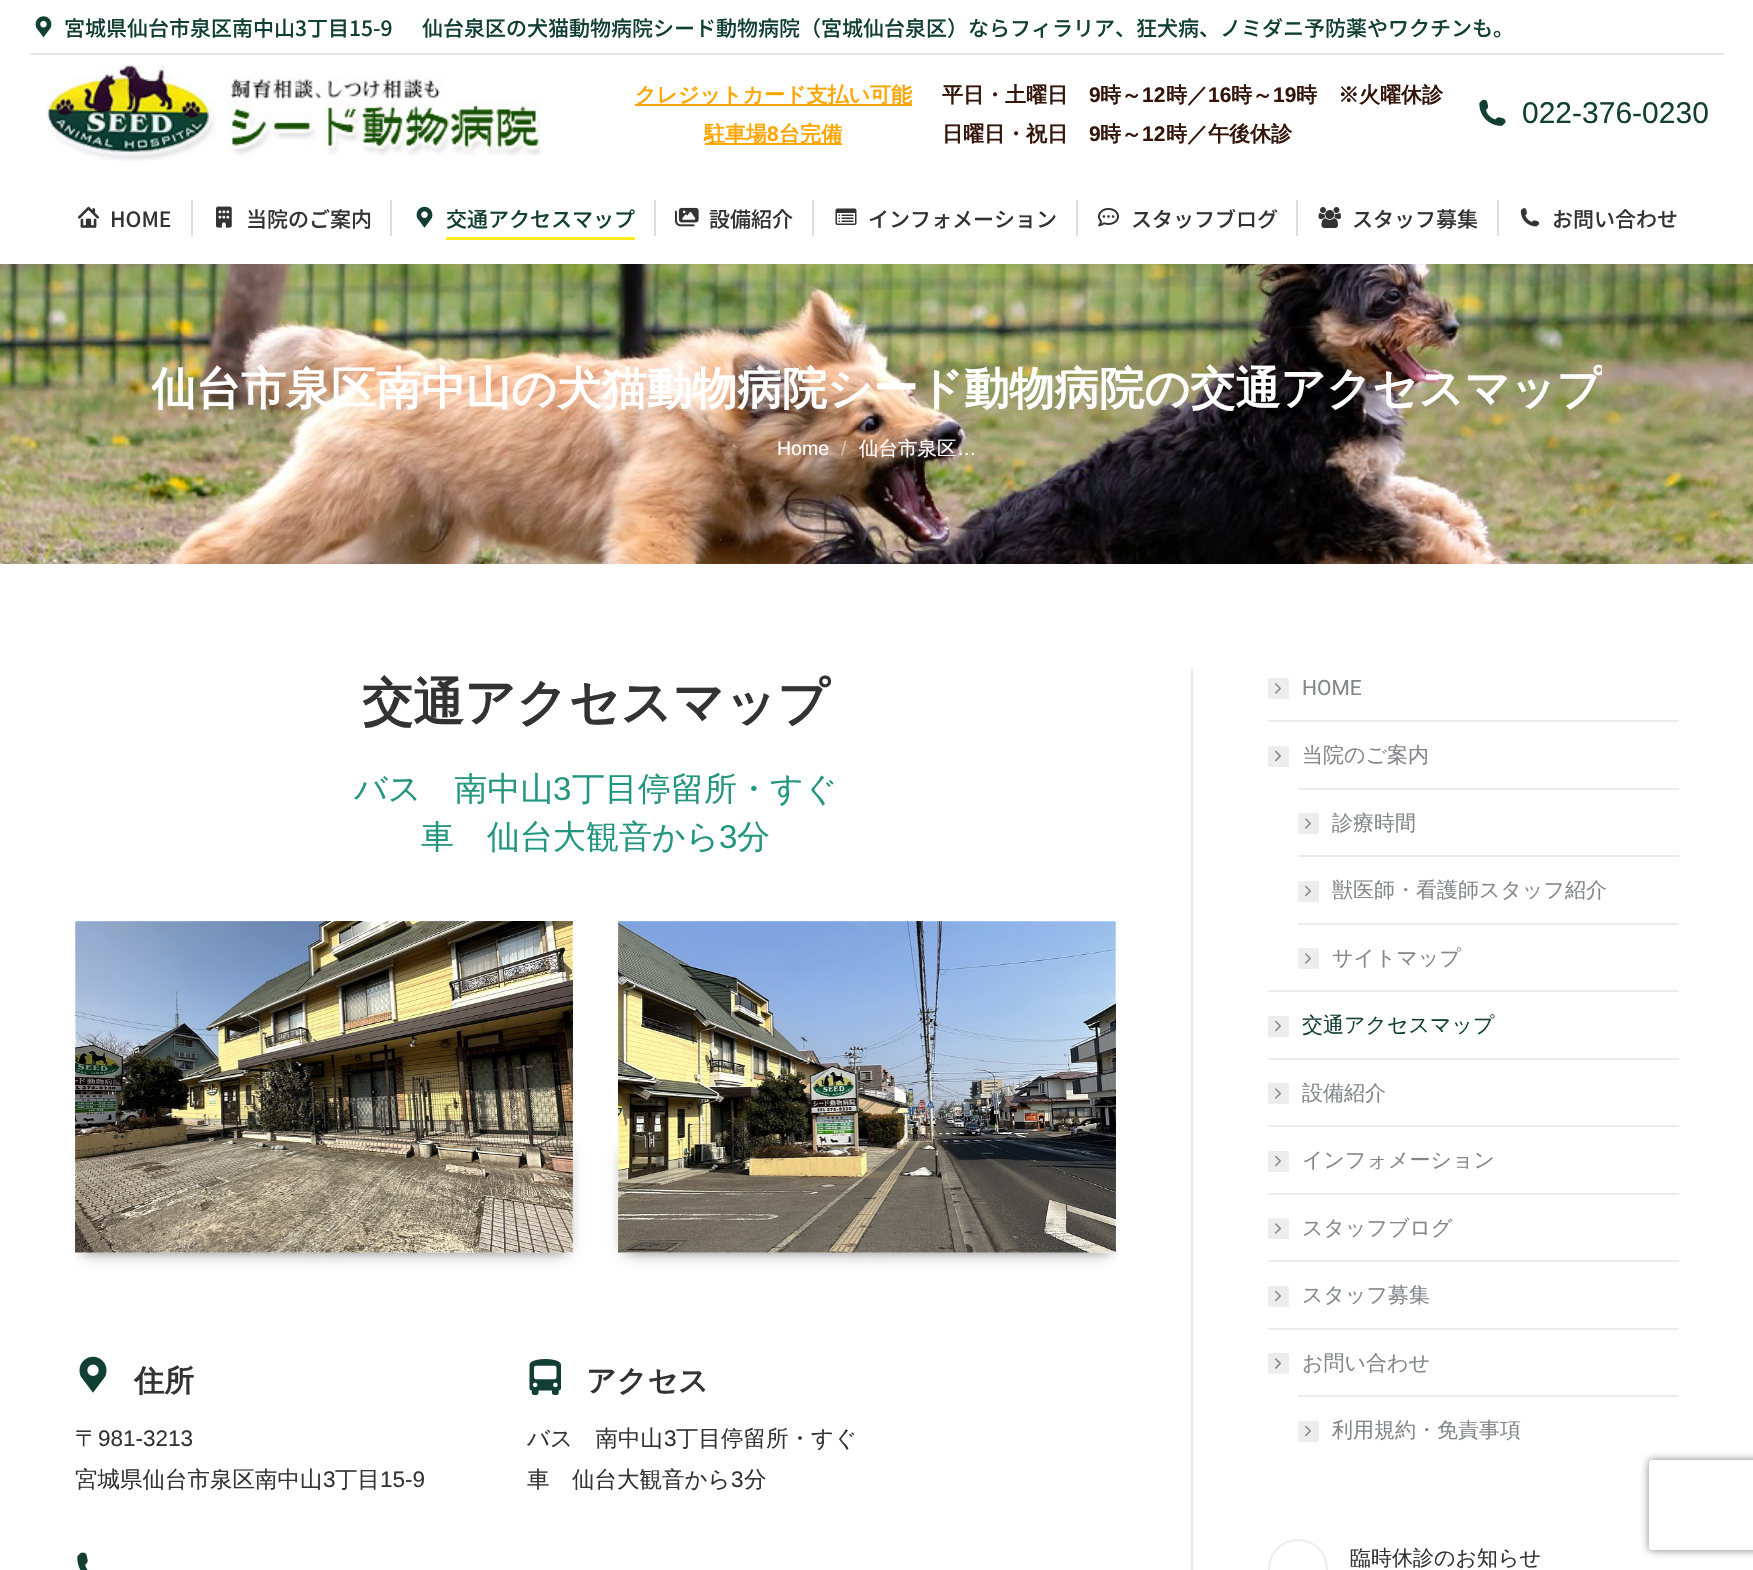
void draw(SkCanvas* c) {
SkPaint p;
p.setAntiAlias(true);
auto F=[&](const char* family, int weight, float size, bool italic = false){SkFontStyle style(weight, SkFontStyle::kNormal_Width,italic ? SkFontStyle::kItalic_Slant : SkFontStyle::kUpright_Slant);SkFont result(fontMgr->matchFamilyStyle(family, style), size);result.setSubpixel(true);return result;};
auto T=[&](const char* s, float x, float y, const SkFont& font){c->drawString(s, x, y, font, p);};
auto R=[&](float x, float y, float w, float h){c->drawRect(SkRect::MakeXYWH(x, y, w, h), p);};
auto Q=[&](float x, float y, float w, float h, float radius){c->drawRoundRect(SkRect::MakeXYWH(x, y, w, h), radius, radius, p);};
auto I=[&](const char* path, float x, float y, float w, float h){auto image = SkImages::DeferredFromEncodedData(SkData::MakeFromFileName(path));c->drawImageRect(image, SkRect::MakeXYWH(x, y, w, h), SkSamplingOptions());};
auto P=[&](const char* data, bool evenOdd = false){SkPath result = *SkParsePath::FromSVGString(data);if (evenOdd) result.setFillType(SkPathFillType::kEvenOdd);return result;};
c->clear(0xffffffff);
I("1.png",35,16,17,22);
auto f1 = F("Noto Sans JP",500,21);
p.setColor(0xff113f34);
T("宮城県仙台市泉区南中山3丁目15-9",64,36,f1);
T("仙台泉区の犬猫動物病院シード動物病院（宮城仙台泉区）ならフィラリア、狂犬病、ノミダニ予防薬やワクチンも。",422,36,f1);
p.setColor(0xffe7e7e7);
R(30,53,1694,2);
I("2.png",47,64,493,97);
p.setColor(0xffffa500);
R(635,104,277,2);
auto f2 = F("WenQuanYi Zen Hei",700,21);
T("クレジットカード支払い可能",635,102,f2);
R(705,143,137,2);
T("駐車場",704,141,f2);
auto f3 = F("Liberation Sans",700,21);
T("8",767,141,f3);
T("台完備",779,141,f2);
p.setColor(0xff33150a);
T("平日・土曜日",942,102,f2);
T("9",1089,102,f3);
T("時～",1100,102,f2);
T("12",1142,102,f3);
T("時／",1166,102,f2);
T("16",1208,102,f3);
T("時～",1231,102,f2);
T("19",1273,102,f3);
T("時　※火曜休診",1296,102,f2);
T("日曜日・祝日",942,141,f2);
T("9",1089,141,f3);
T("時～",1100,141,f2);
T("12",1142,141,f3);
T("時／午後休診",1166,141,f2);
I("3.png",1479,99,27,27);
auto f4 = F("Liberation Sans",400,30);
p.setColor(0xff113f34);
T("022-376-0230",1522,123,f4);
I("4.png",78,206,21,22);
p.setColor(0xff333333);
T("HOME",110,227,f1);
p.setColor(0xffdedede);
R(191,200,2,36);
I("5.png",216,206,16,22);
p.setColor(0xff333333);
T("当院のご案内",246,227,f1);
p.setColor(0xffdedede);
R(390,200,2,36);
I("6.png",416,206,17,22);
p.setColor(0xff113f34);
T("交通アクセスマップ",446,227,f1);
p.setColor(0xffffec19);
R(446,237,189,3);
p.setColor(0xffdedede);
R(654,200,2,36);
I("7.png",675,207,24,20);
p.setColor(0xff333333);
T("設備紹介",709,227,f1);
p.setColor(0xffdedede);
R(812,200,2,36);
I("8.png",835,208,22,17);
p.setColor(0xff333333);
T("インフォメーション",868,227,f1);
p.setColor(0xffdedede);
R(1076,200,2,36);
I("9.png",1098,207,21,20);
p.setColor(0xff333333);
T("スタッフブログ",1131,227,f1);
p.setColor(0xffdedede);
R(1296,200,2,36);
I("10.png",1318,207,23,21);
p.setColor(0xff333333);
T("スタッフ募集",1352,227,f1);
p.setColor(0xffdedede);
R(1497,200,2,36);
I("11.png",1520,208,20,19);
p.setColor(0xff333333);
T("お問い合わせ",1552,227,f1);
I("12.png",0,264,1753,300);
c->save();
c->clipRect(SkRect::MakeXYWH(152,348,1450,84));
auto f5 = F("WenQuanYi Zen Hei",700,45);
p.setColor(0xffffffff);
T("仙台市泉区南中山の犬猫動物病院シード動物病院の交通アクセスマップ",151,404,f5);
c->restore();
auto f6 = F("Liberation Sans",400,19.5);
T("Home",777,455,f6);
p.setColor(0xffd7c1b2);
T("/",841,455,f6);
auto f7 = F("WenQuanYi Zen Hei",500,19.5);
p.setColor(0xffffffff);
T("仙台市泉区",859,455,f7);
T("…",957,455,f6);
auto f8 = F("WenQuanYi Zen Hei",700,51);
p.setColor(0xff333333);
T("交通アクセスマップ",362,720,f8);
auto f9 = F("WenQuanYi Zen Hei",500,33);
p.setColor(0xff23967f);
T("バス　南中山",354,800,f9);
auto f10 = F("Liberation Sans",400,33);
T("3",553,800,f10);
T("丁目停留所・すぐ",572,800,f9);
T("車　仙台大観音から",421,848,f9);
T("3",719,848,f10);
T("分",737,848,f9);
c->save();
c->clipRect(SkRect::MakeXYWH(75,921,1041,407));
p.setColor(0x99000000);
p.setMaskFilter(SkMaskFilter::MakeBlur(kNormal_SkBlurStyle, 7.5));
c->drawRect(SkRect::MakeXYWH(83,1151,241,100),p);
p.setMaskFilter(nullptr);
c->restore();
p.setMaskFilter(SkMaskFilter::MakeBlur(kNormal_SkBlurStyle, 7.5));
c->drawRect(SkRect::MakeXYWH(324,1151,242,100),p);
p.setMaskFilter(nullptr);
I("13.png",75,921,498,332);
p.setMaskFilter(SkMaskFilter::MakeBlur(kNormal_SkBlurStyle, 7.5));
c->drawRect(SkRect::MakeXYWH(626,1151,241,100),p);
p.setMaskFilter(nullptr);
c->save();
c->clipRect(SkRect::MakeXYWH(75,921,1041,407));
p.setMaskFilter(SkMaskFilter::MakeBlur(kNormal_SkBlurStyle, 7.5));
c->drawRect(SkRect::MakeXYWH(867,1151,242,100),p);
p.setMaskFilter(nullptr);
c->restore();
I("14.png",618,921,498,332);
I("15.png",79,1356,28,37);
auto f11 = F("WenQuanYi Zen Hei",700,30);
p.setColor(0xff333333);
T("住所",134,1391,f11);
auto f12 = F("WenQuanYi Zen Hei",500,22.5);
T("〒",75,1446,f12);
auto f13 = F("Liberation Sans",400,22.5);
T("981-3213",98,1446,f13);
T("宮城県仙台市泉区南中山",75,1487,f12);
T("3",323,1487,f13);
T("丁目",335,1487,f12);
T("15-9",380,1487,f13);
I("16.png",77,1552,11,18);
I("17.png",529,1359,32,36);
T("アクセス",586,1391,f11);
T("バス　南中山",527,1446,f12);
T("3",664,1446,f13);
T("丁目停留所・すぐ",676,1446,f12);
T("車　仙台大観音から",527,1487,f12);
T("3",731,1487,f13);
T("分",744,1487,f12);
p.setColor(0xffe7e7e7);
R(1191,669,2,901);
p.setColor(0xffededee);
Q(1268,678,21,21,1.5);
auto f14 = F("Roboto",400,21);
p.setColor(0xff85868c);
T("HOME",1302,695,f14);
I("18.png",1275,683,6,11);
p.setColor(0xffededee);
R(1268,720,411,2);
Q(1268,746,21,21,1.5);
auto f15 = F("WenQuanYi Zen Hei",500,21);
p.setColor(0xff85868c);
T("当院のご案内",1302,762,f15);
I("19.png",1275,750,6,12);
I("20.png",1275,750,6,12);
p.setColor(0xffededee);
R(1298,788,381,2);
Q(1298,813,21,21,1.5);
p.setColor(0xff85868c);
T("診療時間",1332,830,f15);
I("18.png",1305,818,6,11);
p.setColor(0xffededee);
R(1298,855,381,2);
Q(1298,881,21,21,1.5);
p.setColor(0xff85868c);
T("獣医師・看護師スタッフ紹介",1332,897,f15);
I("21.png",1305,885,6,12);
p.setColor(0xffededee);
R(1298,923,381,2);
Q(1298,948,21,21,1.5);
p.setColor(0xff85868c);
T("サイトマップ",1332,965,f15);
I("18.png",1305,953,6,11);
p.setColor(0xffededee);
R(1268,990,411,2);
Q(1268,1016,21,21,1.5);
p.setColor(0xff113f34);
T("交通アクセスマップ",1302,1032,f15);
I("21.png",1275,1020,6,12);
p.setColor(0xffededee);
R(1268,1058,411,2);
Q(1268,1083,21,21,1.5);
p.setColor(0xff85868c);
T("設備紹介",1302,1100,f15);
I("18.png",1275,1088,6,11);
p.setColor(0xffededee);
R(1268,1125,411,2);
Q(1268,1151,21,21,1.5);
p.setColor(0xff85868c);
T("インフォメーション",1302,1167,f15);
I("21.png",1275,1155,6,12);
p.setColor(0xffededee);
R(1268,1193,411,2);
Q(1268,1218,21,21,1.5);
p.setColor(0xff85868c);
T("スタッフブログ",1302,1235,f15);
I("18.png",1275,1223,6,11);
p.setColor(0xffededee);
R(1268,1260,411,2);
Q(1268,1286,21,21,1.5);
p.setColor(0xff85868c);
T("スタッフ募集",1302,1302,f15);
I("21.png",1275,1290,6,12);
p.setColor(0xffededee);
R(1268,1328,411,2);
Q(1268,1353,21,21,1.5);
p.setColor(0xff85868c);
T("お問い合わせ",1302,1370,f15);
I("22.png",1275,1358,6,11);
I("23.png",1275,1358,6,11);
p.setColor(0xffededee);
R(1298,1395,381,2);
Q(1298,1421,21,21,1.5);
p.setColor(0xff85868c);
T("利用規約・免責事項",1332,1437,f15);
I("21.png",1305,1425,6,12);
p.setStroke(true);
p.setStrokeWidth(2);
p.setColor(0xffededee);
c->drawCircle(1298,1569,29,p);
p.setStroke(false);
p.setColor(0xff333333);
T("臨時休診のお知らせ",1350,1565,f15);
c->save();
c->clipPath(P("M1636 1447h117v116h-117zm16 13h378c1.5 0 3 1.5 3 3v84c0 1.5-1.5 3-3 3h-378c-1.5 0-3-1.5-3-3v-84c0-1.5 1.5-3 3-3z",true),true);
p.setColor(0xff808080);
p.setMaskFilter(SkMaskFilter::MakeBlur(kNormal_SkBlurStyle, 4));
c->drawRoundRect(SkRect::MakeXYWH(1649,1460,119,90),3,3,p);
p.setMaskFilter(nullptr);
c->restore();
}
